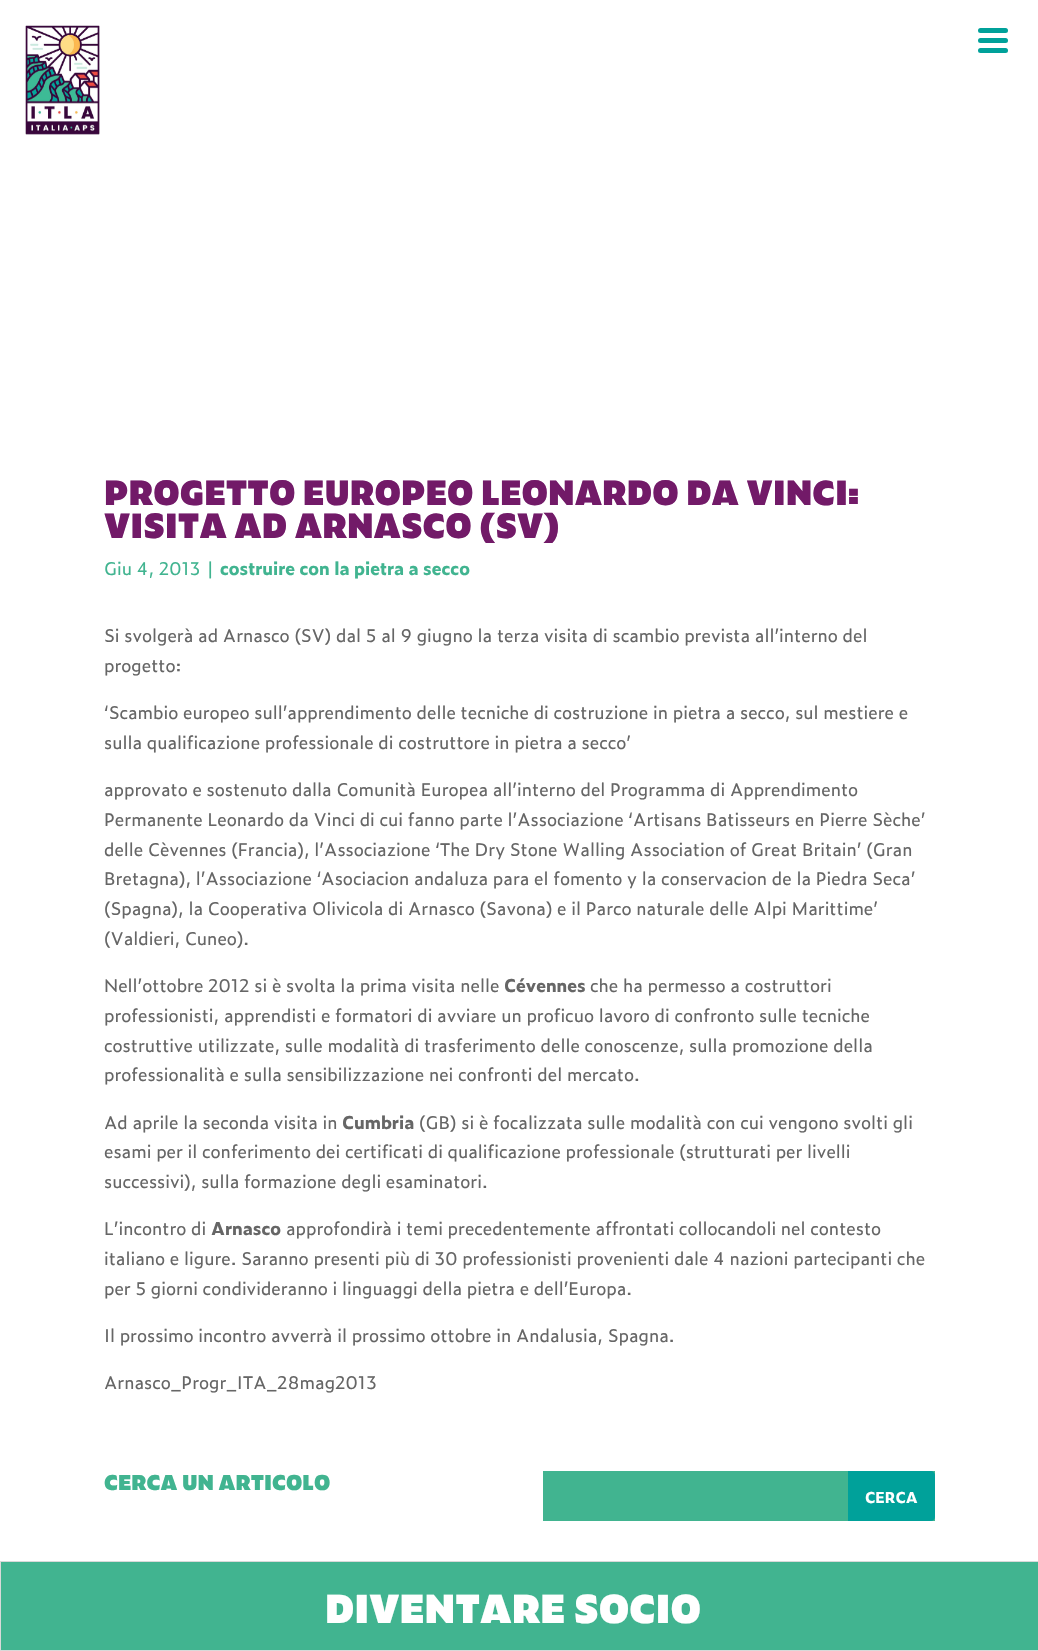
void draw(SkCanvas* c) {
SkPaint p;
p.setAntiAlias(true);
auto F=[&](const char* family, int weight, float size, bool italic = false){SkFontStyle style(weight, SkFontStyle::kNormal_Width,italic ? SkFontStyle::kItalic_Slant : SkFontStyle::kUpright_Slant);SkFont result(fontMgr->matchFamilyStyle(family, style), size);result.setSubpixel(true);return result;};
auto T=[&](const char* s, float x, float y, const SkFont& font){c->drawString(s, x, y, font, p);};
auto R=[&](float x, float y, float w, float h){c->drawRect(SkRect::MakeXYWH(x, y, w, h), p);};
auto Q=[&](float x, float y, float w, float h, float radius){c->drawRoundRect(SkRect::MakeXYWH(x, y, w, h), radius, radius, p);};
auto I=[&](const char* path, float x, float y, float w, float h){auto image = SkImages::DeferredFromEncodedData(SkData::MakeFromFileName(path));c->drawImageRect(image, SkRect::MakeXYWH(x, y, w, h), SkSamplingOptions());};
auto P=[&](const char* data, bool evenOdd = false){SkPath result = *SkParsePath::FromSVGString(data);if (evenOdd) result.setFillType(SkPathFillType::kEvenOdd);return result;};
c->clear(0xffffffff);
p.setColor(0xff00a19a);
Q(978,28,30,5,2.5);
Q(978,38,30,5,2.5);
Q(978,48,30,5,2.5);
I("1.png",25,25,75,110);
auto f1 = F("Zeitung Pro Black",900,32.5);
p.setColor(0xff721a68);
T("PROGETTO EUROPEO LEONARDO DA VINCI:",104,505,f1);
T("VISITA AD ARNASCO (SV)",104,538,f1);
auto f2 = F("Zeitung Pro",400,17.5);
p.setColor(0xff41b490);
T("Giu 4, 2013 |",104,575,f2);
auto f3 = F("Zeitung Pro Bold",700,17.5);
T("costruire con la pietra a secco",220,575,f3);
p.setColor(0xff666666);
T("Si svolgerà ad Arnasco (SV) dal 5 al 9 giugno la terza visita di scambio prevista all’interno del",104,642,f2);
T("progetto:",104,672,f2);
T("‘Scambio europeo sull’apprendimento delle tecniche di costruzione in pietra a secco, sul mestiere e",104,719,f2);
T("sulla qualificazione professionale di costruttore in pietra a secco’",104,749,f2);
T("approvato e sostenuto dalla Comunità Europea all’interno del Programma di Apprendimento",104,796,f2);
T("Permanente Leonardo da Vinci di cui fanno parte l’Associazione ‘Artisans Batisseurs en Pierre Sèche’",104,826,f2);
T("delle Cèvennes (Francia), l’Associazione ‘The Dry Stone Walling Association of Great Britain’ (Gran",104,856,f2);
T("Bretagna), l’Associazione ‘Asociacion andaluza para el fomento y la conservacion de la Piedra Seca’",104,885,f2);
T("(Spagna), la Cooperativa Olivicola di Arnasco (Savona) e il Parco naturale delle Alpi Marittime’",104,915,f2);
T("(Valdieri, Cuneo).",104,945,f2);
T("Nell’ottobre 2012 si è svolta la prima visita nelle",104,992,f2);
T("Cévennes",504,992,f3);
T("che ha permesso a costruttori",590,992,f2);
T("professionisti, apprendisti e formatori di avviare un proficuo lavoro di confronto sulle tecniche",104,1022,f2);
T("costruttive utilizzate, sulle modalità di trasferimento delle conoscenze, sulla promozione della",104,1052,f2);
T("professionalità e sulla sensibilizzazione nei confronti del mercato.",104,1081,f2);
T("Ad aprile la seconda visita in",104,1129,f2);
T("Cumbria",342,1129,f3);
T("(GB) si è focalizzata sulle modalità con cui vengono svolti gli",419,1129,f2);
T("esami per il conferimento dei certificati di qualificazione professionale (strutturati per livelli",104,1158,f2);
T("successivi), sulla formazione degli esaminatori.",104,1188,f2);
T("L’incontro di",104,1235,f2);
T("Arnasco",211,1235,f3);
T("approfondirà i temi precedentemente affrontati collocandoli nel contesto",286,1235,f2);
T("italiano e ligure. Saranno presenti più di 30 professionisti provenienti dale 4 nazioni partecipanti che",104,1265,f2);
T("per 5 giorni condivideranno i linguaggi della pietra e dell’Europa.",104,1295,f2);
T("Il prossimo incontro avverrà il prossimo ottobre in Andalusia, Spagna.",104,1342,f2);
T("Arnasco_Progr_ITA_28mag2013",104,1389,f2);
auto f4 = F("Zeitung Pro Black",900,20);
p.setColor(0xff41b490);
T("CERCA UN ARTICOLO",104,1490,f4);
R(543,1471,392,50);
p.setColor(0xff00a19a);
c->drawPath(P("M848 1471h83c2 0 4 2 4 4v42c0 2-2 4-4 4h-83z"),p);
auto f5 = F("Zeitung Pro Bold",700,15);
p.setColor(0xffffffff);
T("CERCA",865,1503,f5);
p.setColor(0xff41b490);
c->drawRect(SkRect::MakeXYWH(.5,1561.5,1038,89),p);
p.setStroke(true);
p.setStrokeWidth(1);
p.setColor(0xffd9d9d9);
c->drawRect(SkRect::MakeXYWH(.5,1561.5,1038,89),p);
auto f6 = F("Zeitung Pro Black",900,37.5);
p.setStroke(false);
p.setColor(0xffffffff);
T("DIVENTARE SOCIO",325,1623,f6);
}
